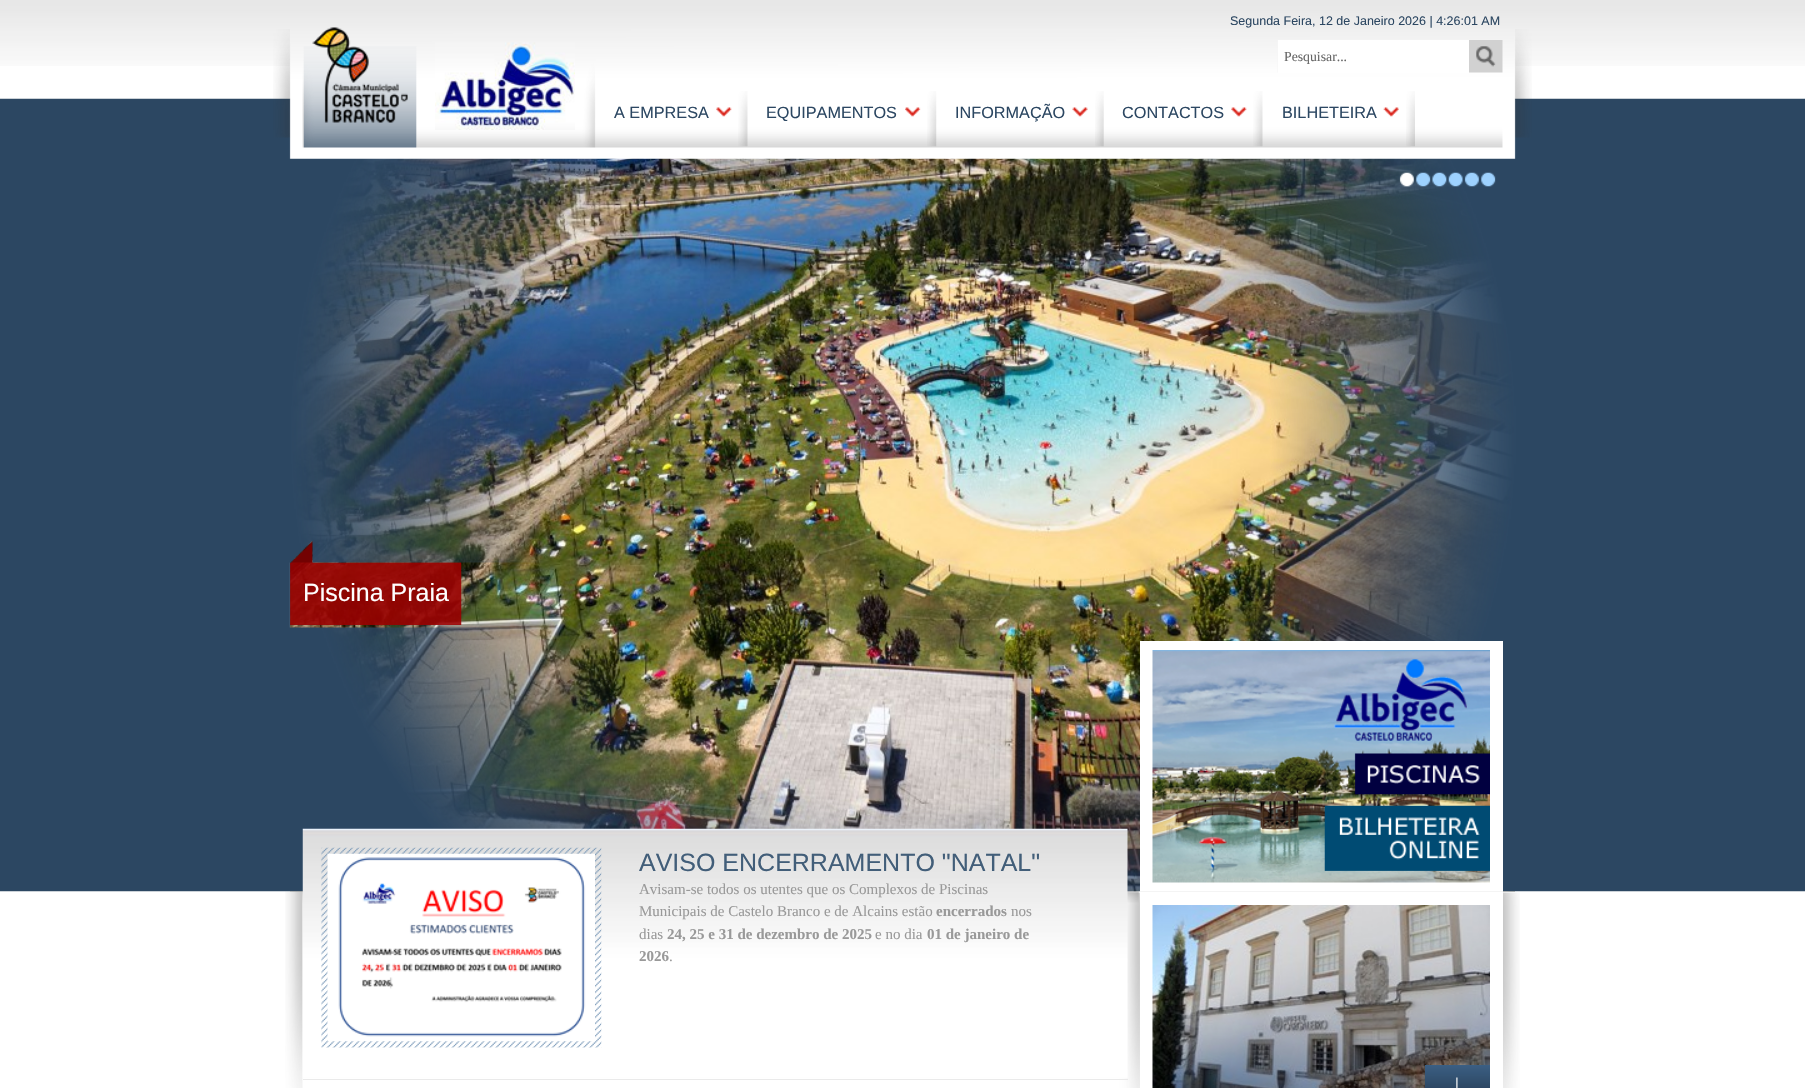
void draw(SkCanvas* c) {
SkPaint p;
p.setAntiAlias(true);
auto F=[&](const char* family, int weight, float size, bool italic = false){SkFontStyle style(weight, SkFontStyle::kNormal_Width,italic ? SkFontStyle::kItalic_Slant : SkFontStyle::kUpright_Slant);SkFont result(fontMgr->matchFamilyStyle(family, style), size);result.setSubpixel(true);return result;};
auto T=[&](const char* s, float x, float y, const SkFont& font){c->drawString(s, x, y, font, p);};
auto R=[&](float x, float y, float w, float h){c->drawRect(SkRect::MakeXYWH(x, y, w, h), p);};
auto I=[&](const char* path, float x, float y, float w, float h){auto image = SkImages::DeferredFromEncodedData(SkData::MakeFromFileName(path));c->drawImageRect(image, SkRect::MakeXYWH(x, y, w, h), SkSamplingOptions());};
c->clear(0xffffffff);
I("1.png",0,0,1805,66);
I("23.png",290,98,1225,794);
I("24.png",290,541,172,84);
auto f1 = F("Liberation Sans",400,25);
p.setColor(0xffffffff);
T("Piscina Praia",303,601,f1);
I("16.png",0,98,1805,794);
I("2.png",273,29,1259,130);
auto f2 = F("Liberation Sans",400,12.5);
p.setColor(0xff2c4762);
T("Segunda Feira, 12 de Janeiro 2026 | 4:26:01 AM",1230,25,f2);
I("6.png",302,46,1201,102);
I("3.png",312,27,96,96);
I("4.png",435,42,140,88);
I("5.png",1277,40,226,33);
p.setColor(0xffffffff);
R(1278,40,191,33);
auto f3 = F("Liberation Serif",400,13.75);
p.setColor(0xff666666);
T("Pesquisar...",1284,61,f3);
I("7.png",738,91,10,56);
I("8.png",716,107,16,10);
auto f4 = F("Liberation Sans",400,16.25);
p.setColor(0xff2c4762);
T("A EMPRESA",614,118,f4);
I("9.png",927,91,10,56);
I("10.png",905,107,16,10);
T("EQUIPAMENTOS",766,118,f4);
I("11.png",1095,91,9,56);
I("12.png",1072,107,16,10);
T("INFORMAÇÃO",955,118,f4);
I("13.png",1253,91,10,56);
I("8.png",1231,107,16,10);
T("CONTACTOS",1122,118,f4);
I("14.png",1406,91,9,56);
I("15.png",1383,107,16,10);
T("BILHETEIRA",1282,118,f4);
I("17.png",1399,172,15,15);
I("18.png",1416,172,15,15);
I("19.png",1432,172,15,15);
I("20.png",1448,172,15,15);
I("21.png",1464,172,15,15);
I("22.png",1481,172,15,15);
I("25.png",285,891,1235,197);
I("26.png",302,828,826,250);
p.setColor(0xffeaeaea);
R(303,1079,825,1);
I("27.png",321,847,281,201);
I("28.png",327,853,268,189);
p.setColor(0xff425e79);
T("AVISO ENCERRAMENTO \"NATAL\"",639,871,f1);
auto f5 = F("Liberation Serif",400,15);
p.setColor(0xff999999);
T("Avisam-se todos os utentes que os Complexos de Piscinas",639,894,f5);
T("Municipais de Castelo Branco e de Alcains estão",639,916,f5);
auto f6 = F("Liberation Serif",700,15);
T("encerrados",936,916,f6);
T("nos",1011,916,f5);
T("dias",639,939,f5);
T("24, 25 e 31 de dezembro de 2025",667,939,f6);
T("e no dia",875,939,f5);
T("01 de janeiro de",927,939,f6);
T("2026",639,961,f6);
T(".",669,961,f5);
p.setColor(0xffffffff);
R(1140,641,363,447);
I("29.png",1152,650,338,233);
p.setColor(0xfff4f4f4);
R(1140,891,363,1);
I("30.png",1152,905,338,183);
I("31.png",1425,1065,65,23);
}
